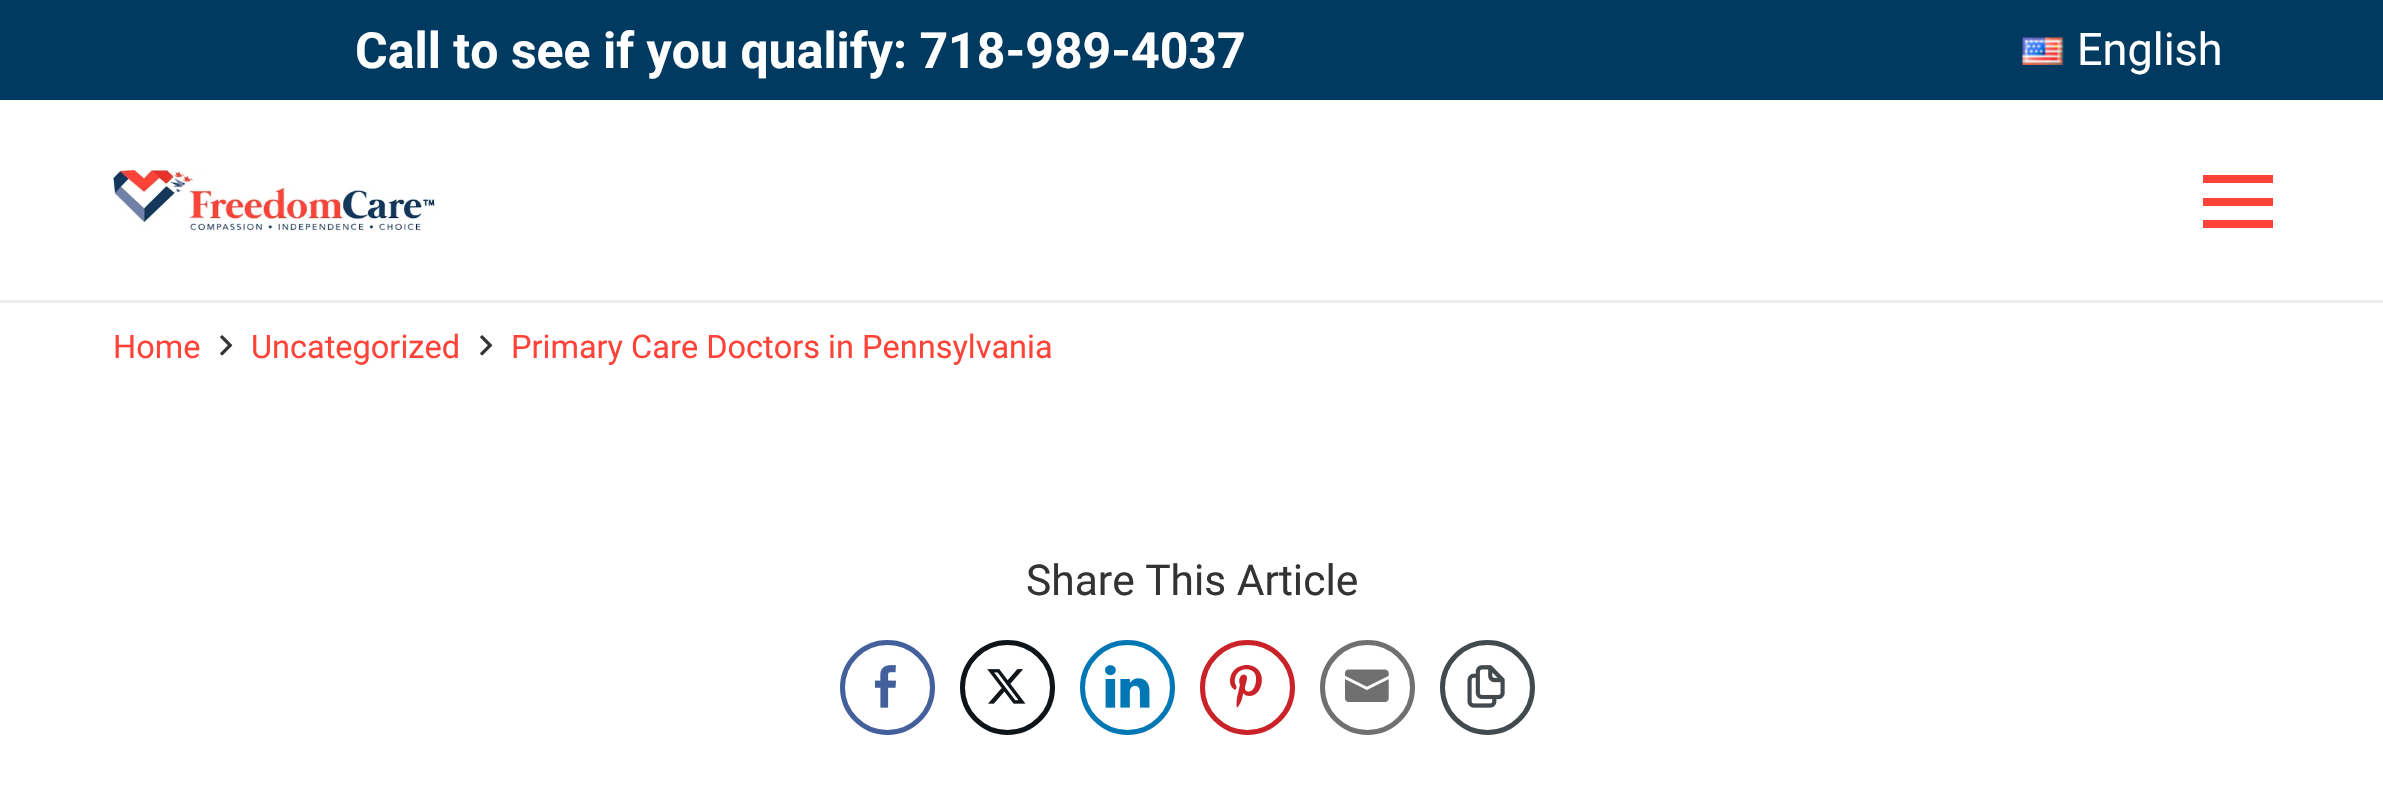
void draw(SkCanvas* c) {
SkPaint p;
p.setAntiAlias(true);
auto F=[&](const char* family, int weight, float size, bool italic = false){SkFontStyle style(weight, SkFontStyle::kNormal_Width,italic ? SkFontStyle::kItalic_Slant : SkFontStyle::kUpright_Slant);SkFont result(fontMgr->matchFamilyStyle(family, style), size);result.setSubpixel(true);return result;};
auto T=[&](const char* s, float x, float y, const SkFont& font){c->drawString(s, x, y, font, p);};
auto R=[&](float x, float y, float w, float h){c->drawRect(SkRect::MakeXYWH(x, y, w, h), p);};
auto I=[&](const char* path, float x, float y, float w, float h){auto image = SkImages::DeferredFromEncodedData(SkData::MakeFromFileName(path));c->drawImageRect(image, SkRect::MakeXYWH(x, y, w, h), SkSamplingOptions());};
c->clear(0xffffffff);
p.setColor(0xff003a60);
R(0,0,2383,100);
auto f1 = F("Roboto",700,50);
p.setColor(0xffffffff);
T("Call to see if you qualify: 718-989-4037",355,68,f1);
I("1.png",2022,37,42,28);
auto f2 = F("Roboto",400,45);
T("English",2077,65,f2);
p.setColor(0xffebebeb);
R(0,300,2383,3);
I("2.png",113,170,322,61);
p.setColor(0xffff4338);
R(2203,198,70,8);
R(2203,175,70,8);
R(2203,220,70,8);
auto f3 = F("Roboto",400,32.5);
T("Home",113,358,f3);
I("3.png",220,335,13,21);
T("Uncategorized",251,358,f3);
I("3.png",480,335,13,21);
T("Primary Care Doctors in Pennsylvania",511,358,f3);
auto f4 = F("Roboto",400,42.5);
p.setColor(0xff333333);
T("Share This Article",1026,595,f4);
p.setStroke(true);
p.setStrokeWidth(5);
p.setColor(0xff43609c);
c->drawCircle(887.5,687.5,45,p);
I("4.png",875,665,21,43);
p.setColor(0xff0f1419);
c->drawCircle(1007.5,687.5,45,p);
I("5.png",987,669,39,35);
p.setColor(0xff0077b5);
c->drawCircle(1127.5,687.5,45,p);
I("6.png",1105,665,45,43);
p.setColor(0xffc92228);
c->drawCircle(1247.5,687.5,45,p);
I("7.png",1229,665,33,43);
p.setColor(0xff717070);
c->drawCircle(1367.5,687.5,45,p);
I("8.png",1345,669,44,33);
p.setColor(0xff434a4d);
c->drawCircle(1487.5,687.5,45,p);
I("9.png",1467,665,38,43);
}
